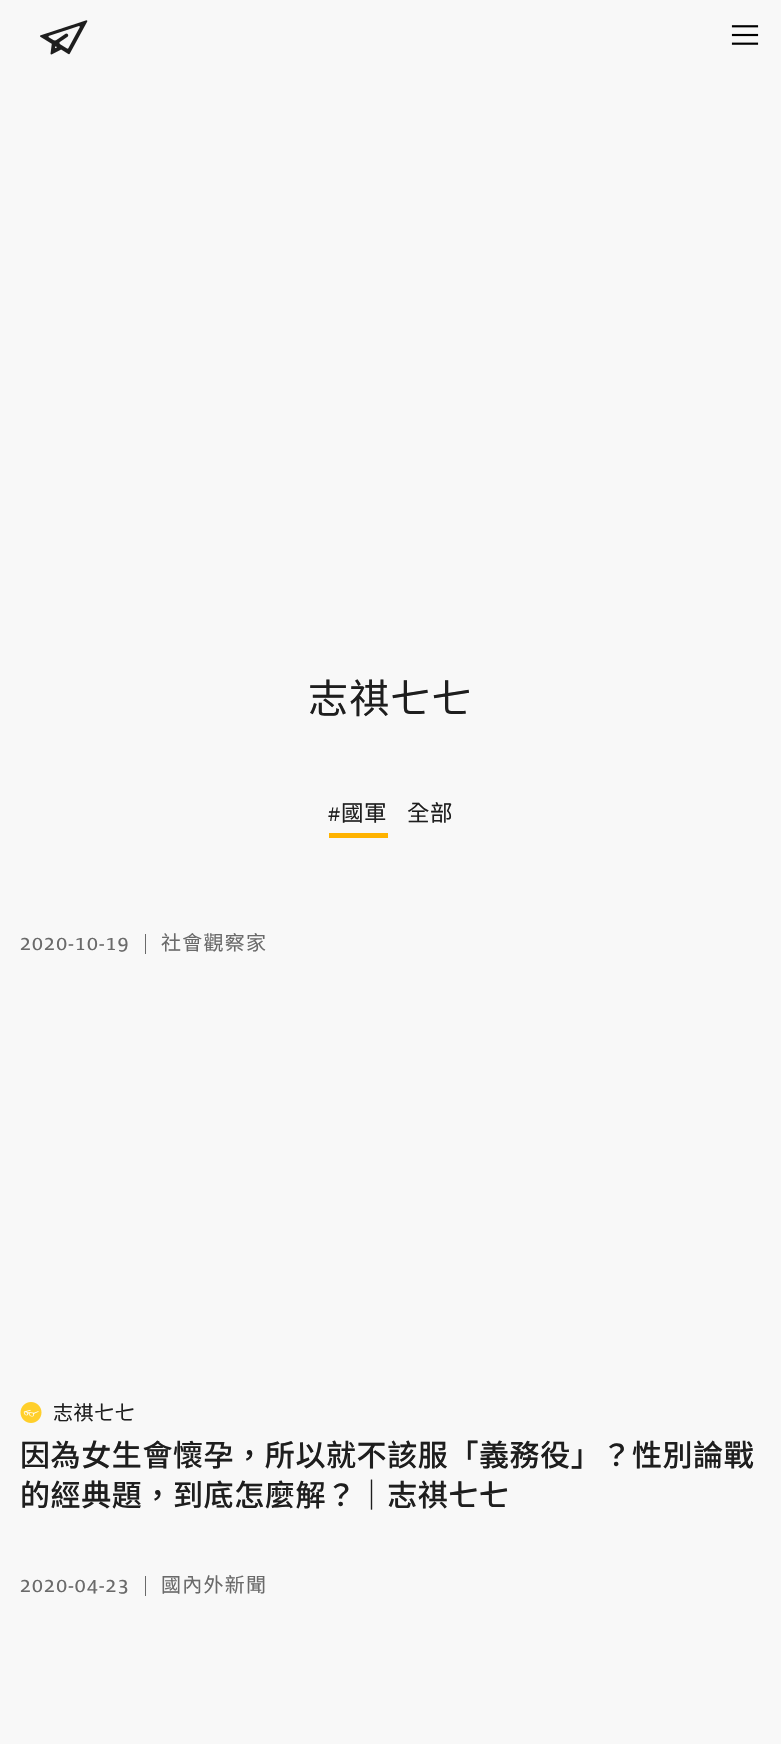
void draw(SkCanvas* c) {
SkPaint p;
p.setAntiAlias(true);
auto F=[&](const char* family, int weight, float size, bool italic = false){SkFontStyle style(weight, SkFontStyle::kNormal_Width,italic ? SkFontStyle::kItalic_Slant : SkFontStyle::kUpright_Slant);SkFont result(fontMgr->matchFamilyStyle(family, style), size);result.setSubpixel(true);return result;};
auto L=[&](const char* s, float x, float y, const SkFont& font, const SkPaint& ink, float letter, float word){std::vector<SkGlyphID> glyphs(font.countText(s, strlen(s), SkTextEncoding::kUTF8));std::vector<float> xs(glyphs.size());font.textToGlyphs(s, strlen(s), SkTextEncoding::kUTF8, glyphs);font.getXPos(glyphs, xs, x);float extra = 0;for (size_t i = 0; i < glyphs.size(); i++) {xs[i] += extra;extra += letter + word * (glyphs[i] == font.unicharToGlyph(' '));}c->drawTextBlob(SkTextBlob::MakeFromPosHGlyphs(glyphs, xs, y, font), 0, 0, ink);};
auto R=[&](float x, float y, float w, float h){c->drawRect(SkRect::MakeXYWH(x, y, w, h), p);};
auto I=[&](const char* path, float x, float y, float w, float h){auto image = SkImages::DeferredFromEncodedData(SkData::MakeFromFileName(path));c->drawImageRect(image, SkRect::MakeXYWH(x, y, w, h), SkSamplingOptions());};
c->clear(0xfff8f8f8);
I("1.png",40,20,48,35);
I("2.png",731,25,28,20);
auto f1 = F("Noto Sans TC",400,40);
p.setColor(0xff1e1e1e);
L("志祺七七",308,713,f1,p,1.25,0);
auto f2 = F("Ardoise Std",400,22.5);
L("#",328,821,f2,p,.6,0);
auto f3 = F("Noto Sans TC",400,22.5);
L("國軍",341,821,f3,p,.6,0);
p.setColor(0xffffb300);
R(329,833,59,5);
p.setColor(0xff1e1e1e);
L("全部",407,821,f3,p,.6,0);
auto f4 = F("Ardoise Std",400,20);
p.setColor(0xff6a6a6a);
L("2020-10-19",20,950,f4,p,1.25,0);
R(145,934,1,20);
auto f5 = F("Noto Sans TC",400,20);
L("社會觀察家",161,950,f5,p,1.25,0);
I("3.png",20,1402,22,21);
p.setColor(0xff1e1e1e);
L("志祺七七",53,1420,f5,p,.6,0);
auto f6 = F("Noto Sans TC",500,30);
L("因為女生會懷孕，所以就不該服「義務役」？性別論戰",20,1466,f6,p,.6,0);
L("的經典題，到底怎麼解？｜志祺七七",20,1506,f6,p,.6,0);
p.setColor(0xff6a6a6a);
L("2020-04-23",20,1592,f4,p,1.25,0);
R(145,1576,1,20);
L("國內外新聞",161,1592,f5,p,1.25,0);
}
